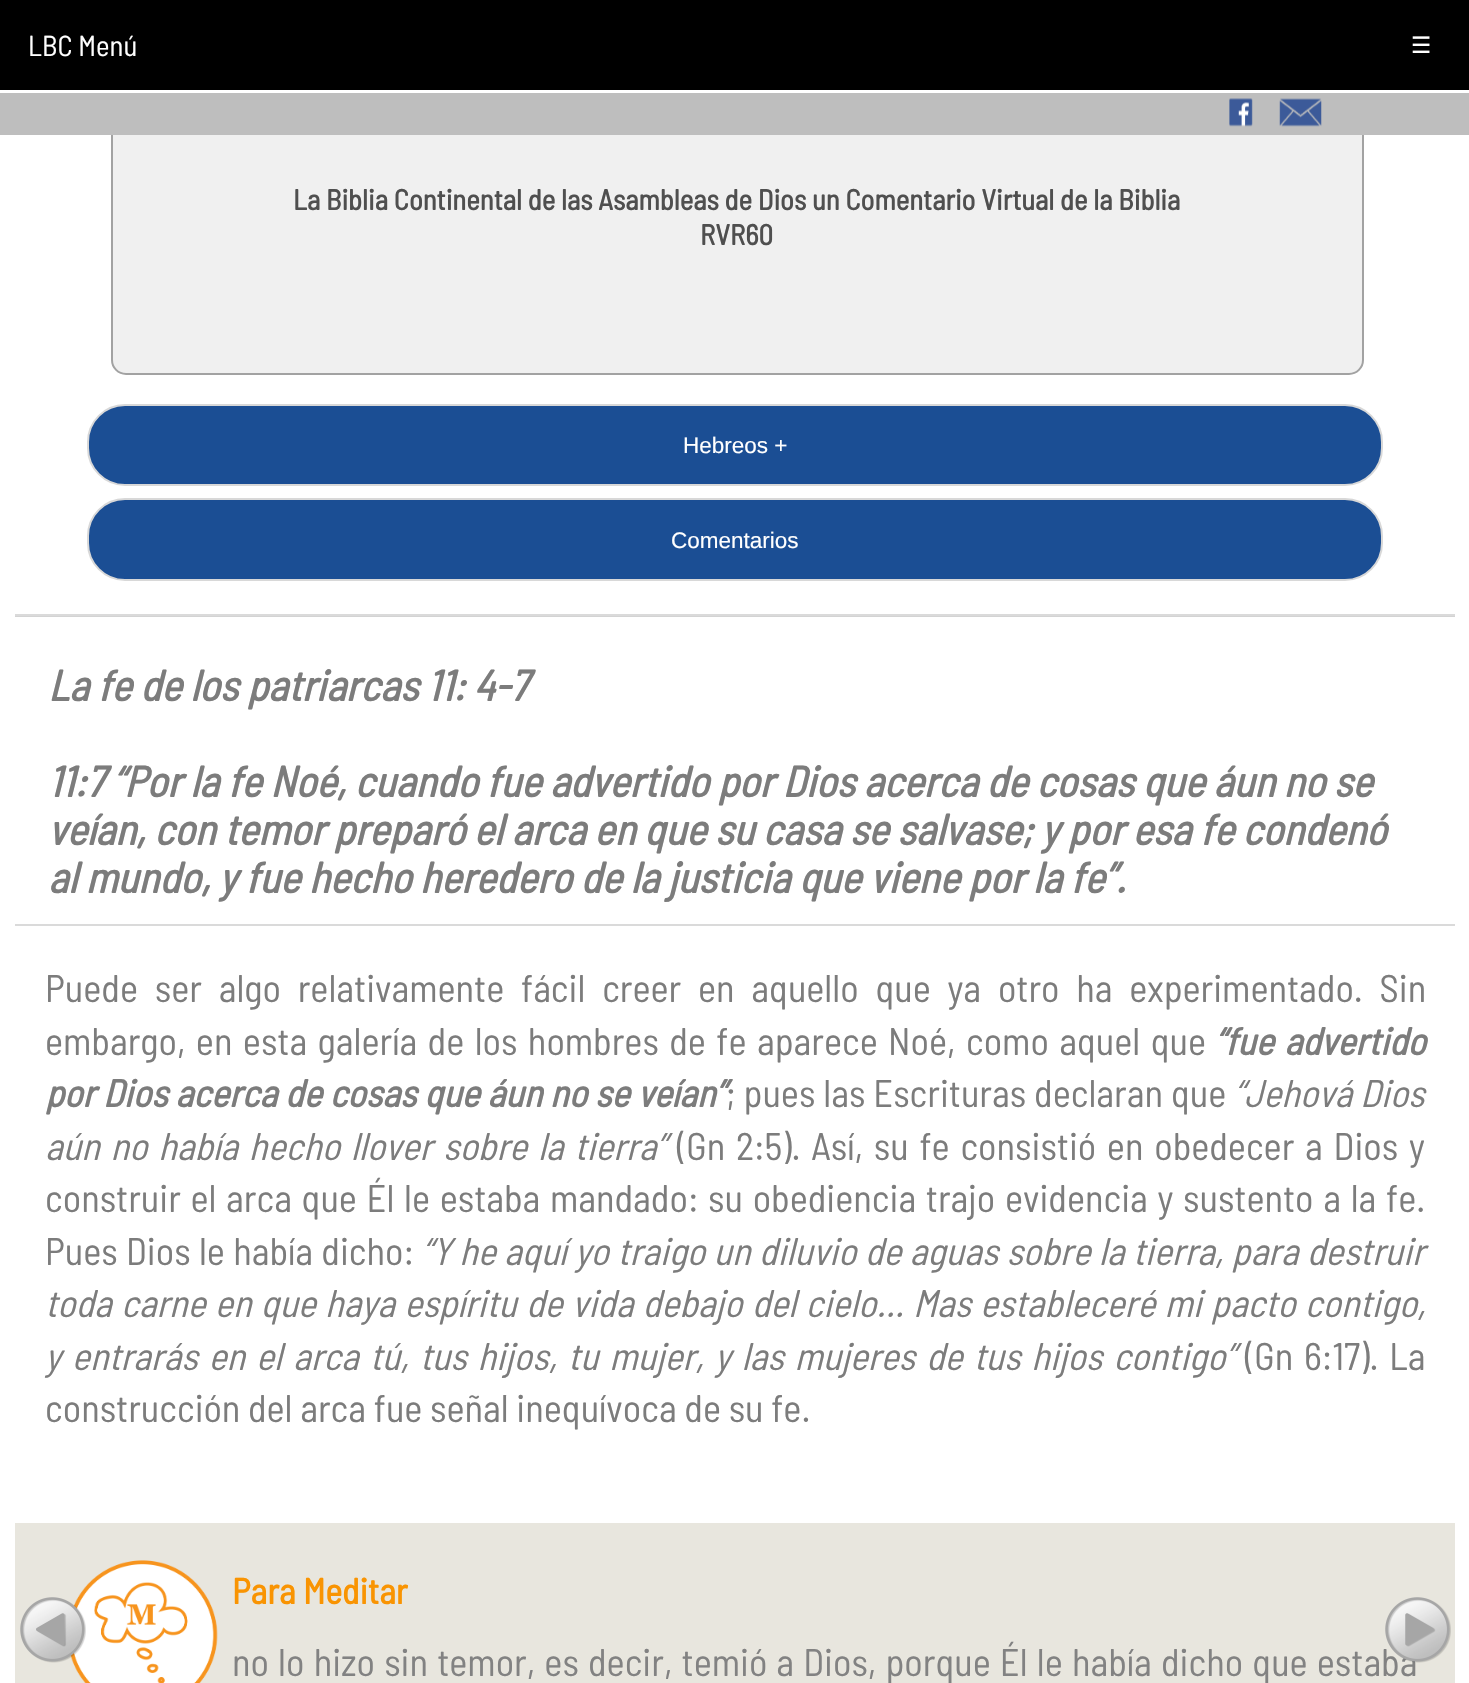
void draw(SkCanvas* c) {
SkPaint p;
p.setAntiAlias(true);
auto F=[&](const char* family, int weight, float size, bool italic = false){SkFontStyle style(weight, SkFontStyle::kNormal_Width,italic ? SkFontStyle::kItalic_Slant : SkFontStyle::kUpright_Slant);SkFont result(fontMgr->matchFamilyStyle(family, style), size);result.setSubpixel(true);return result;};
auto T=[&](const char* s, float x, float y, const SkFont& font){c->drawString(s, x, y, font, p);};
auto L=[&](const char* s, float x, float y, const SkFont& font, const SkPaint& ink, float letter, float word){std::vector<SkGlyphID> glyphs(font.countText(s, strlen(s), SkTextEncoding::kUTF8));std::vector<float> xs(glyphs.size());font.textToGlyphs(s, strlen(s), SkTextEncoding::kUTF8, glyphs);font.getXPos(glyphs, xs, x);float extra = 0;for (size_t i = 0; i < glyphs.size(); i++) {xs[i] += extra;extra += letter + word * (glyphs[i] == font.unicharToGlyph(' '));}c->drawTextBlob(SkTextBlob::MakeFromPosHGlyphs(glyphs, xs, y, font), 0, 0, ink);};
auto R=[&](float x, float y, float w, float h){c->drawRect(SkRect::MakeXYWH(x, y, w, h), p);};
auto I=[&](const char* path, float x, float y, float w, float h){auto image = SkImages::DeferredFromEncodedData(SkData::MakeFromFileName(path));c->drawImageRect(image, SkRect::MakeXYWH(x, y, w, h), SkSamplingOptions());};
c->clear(0xffffffff);
p.setColor(0xfff0f0f0);
c->drawRoundRect(SkRect::MakeXYWH(112,61,1251,313),14,14,p);
p.setStroke(true);
p.setStrokeWidth(2);
p.setColor(0xffa2a2a2);
c->drawRoundRect(SkRect::MakeXYWH(112,61,1251,313),14,14,p);
p.setStroke(false);
p.setColor(0xff000000);
R(0,0,1469,90);
auto f1 = F("Barlow Semi Condensed",400,28.8);
p.setColor(0xffffffff);
T("LBC Menú",28,56,f1);
R(111,90,1253,3);
auto f2 = F("DejaVu Sans",400,22.5);
T("☰",1411,53,f2);
p.setColor(0xffbebebe);
R(0,93,1469,42);
I("1.png",1229,98,24,29);
I("2.png",1279,98,43,29);
auto f3 = F("Barlow Semi Condensed",700,28.8);
p.setColor(0xff4f4f4f);
T("La Biblia Continental de las Asambleas de Dios un Comentario Virtual de la Biblia",293,210,f3);
T("RVR60",700,245,f3);
p.setColor(0xff1b4e94);
c->drawRoundRect(SkRect::MakeXYWH(88,405,1294,80),37,37,p);
p.setStroke(true);
p.setColor(0xffd8d8d8);
c->drawRoundRect(SkRect::MakeXYWH(88,405,1294,80),37,37,p);
auto f4 = F("Liberation Sans",400,22.5);
p.setStroke(false);
p.setColor(0xffffffff);
T("Hebreos +",683,453,f4);
p.setColor(0xff1b4e94);
c->drawRoundRect(SkRect::MakeXYWH(88,499,1294,81),37,37,p);
p.setStroke(true);
p.setColor(0xffd8d8d8);
c->drawRoundRect(SkRect::MakeXYWH(88,499,1294,81),37,37,p);
p.setStroke(false);
p.setColor(0xffffffff);
T("Comentarios",671,548,f4);
p.setColor(0xffd3d3d3);
R(15,616,1440,1);
p.setColor(0xffdadada);
R(15,614,1440,2);
auto f5 = F("Barlow Semi Condensed",700,43.2,true);
p.setColor(0xff7c7c7c);
T("La fe de los patriarcas 11: 4-7",48,701,f5);
T("11:7 “Por la fe Noé, cuando fue advertido por Dios acerca de cosas que áun no se",48,797,f5);
T("veían, con temor preparó el arca en que su casa se salvase; y por esa fe condenó",48,845,f5);
T("al mundo, y fue hecho heredero de la justicia que viene por la fe”.",48,893,f5);
p.setColor(0xffdadada);
R(15,924,1440,2);
auto f6 = F("Barlow Semi Condensed",400,38.4);
p.setColor(0xff7c7c7c);
L("Puede ser algo relativamente fácil creer en aquello que ya otro ha experimentado. Sin",45,1002,f6,p,0,9.1);
L("embargo, en esta galería de los hombres de fe aparece Noé, como aquel que",45,1055,f6,p,0,2.75);
auto f7 = F("Barlow Semi Condensed",700,38.4,true);
L("“fue advertido",1215,1055,f7,p,0,3);
L("por Dios acerca de cosas que áun no se veían”",45,1107,f7,p,0,.25);
L("; pues las Escrituras declaran que",726,1107,f6,p,0,.25);
auto f8 = F("Barlow Semi Condensed",400,38.4,true);
T("“Jehová Dios",1234,1107,f8);
L("aún no había hecho llover sobre la tierra”",45,1160,f8,p,0,3.1);
L("(Gn 2:5). Así, su fe consistió en obedecer a Dios y",677,1160,f6,p,0,3.1);
L("construir el arca que Él le estaba mandado: su obediencia trajo evidencia y sustento a la fe.",45,1212,f6,p,0,2);
L("Pues Dios le había dicho:",45,1265,f6,p,0,.6);
L("“Y he aquí yo traigo un diluvio de aguas sobre la tierra, para destruir",422,1265,f8,p,0,.6);
L("toda carne en que haya espíritu de vida debajo del cielo… Mas estableceré mi pacto contigo,",45,1317,f8,p,0,1.5);
L("y entrarás en el arca tú, tus hijos, tu mujer, y las mujeres de tus hijos contigo”",45,1370,f8,p,0,3.25);
L("(Gn 6:17). La",1245,1370,f6,p,0,3.25);
T("construcción del arca fue señal inequívoca de su fe.",45,1422,f6);
p.setColor(0xffe8e6de);
R(15,1523,1440,160);
I("3.png",70,1560,148,123);
auto f9 = F("Barlow Semi Condensed",700,36);
p.setColor(0xfff99402);
T("Para Meditar",232,1604,f9);
p.setColor(0xff828282);
L("no lo hizo sin temor, es decir, temió a Dios, porque Él le había dicho que estaba",232,1676,f6,p,0,1.5);
I("4.png",20,1597,66,66);
I("5.png",1385,1597,66,66);
}
